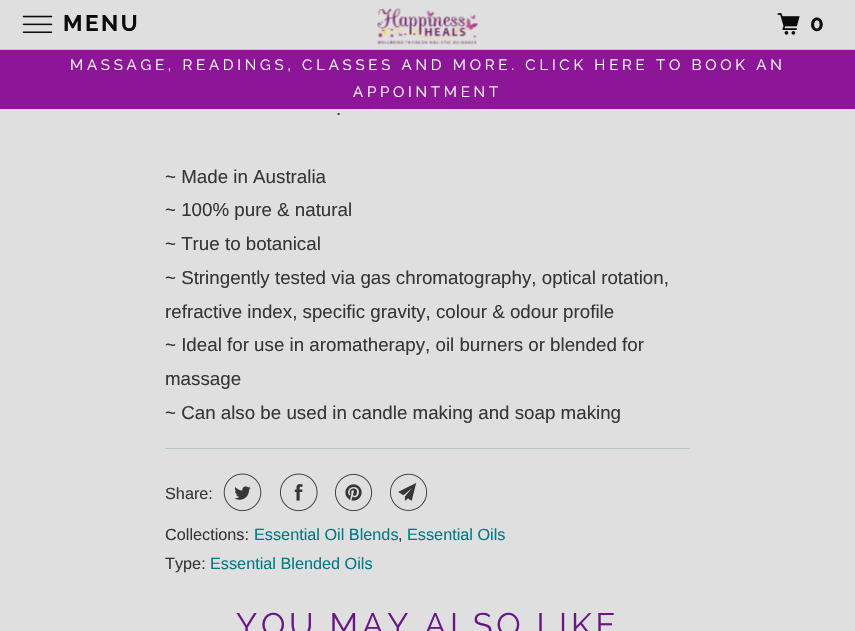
void draw(SkCanvas* c) {
SkPaint p;
p.setAntiAlias(true);
auto F=[&](const char* family, int weight, float size, bool italic = false){SkFontStyle style(weight, SkFontStyle::kNormal_Width,italic ? SkFontStyle::kItalic_Slant : SkFontStyle::kUpright_Slant);SkFont result(fontMgr->matchFamilyStyle(family, style), size);result.setSubpixel(true);return result;};
auto T=[&](const char* s, float x, float y, const SkFont& font){c->drawString(s, x, y, font, p);};
auto L=[&](const char* s, float x, float y, const SkFont& font, const SkPaint& ink, float letter, float word){std::vector<SkGlyphID> glyphs(font.countText(s, strlen(s), SkTextEncoding::kUTF8));std::vector<float> xs(glyphs.size());font.textToGlyphs(s, strlen(s), SkTextEncoding::kUTF8, glyphs);font.getXPos(glyphs, xs, x);float extra = 0;for (size_t i = 0; i < glyphs.size(); i++) {xs[i] += extra;extra += letter + word * (glyphs[i] == font.unicharToGlyph(' '));}c->drawTextBlob(SkTextBlob::MakeFromPosHGlyphs(glyphs, xs, y, font), 0, 0, ink);};
auto R=[&](float x, float y, float w, float h){c->drawRect(SkRect::MakeXYWH(x, y, w, h), p);};
auto I=[&](const char* path, float x, float y, float w, float h){auto image = SkImages::DeferredFromEncodedData(SkData::MakeFromFileName(path));c->drawImageRect(image, SkRect::MakeXYWH(x, y, w, h), SkSamplingOptions());};
c->clear(0xffdfdfdf);
p.setColor(0xf2b8c6c6);
R(0,49,855,1);
I("1.png",22,15,31,18);
auto f1 = F("Raleway",700,22.5);
p.setColor(0xff0b0b0b);
L("MENU",63,31,f1,p,2.5,0);
I("2.png",377,8,101,37);
I("3.png",777,13,23,22);
L("0",810,31,f1,p,2.5,0);
p.setColor(0xff8d1698);
R(0,50,855,59);
auto f2 = F("Raleway",400,15);
p.setColor(0xffffffff);
L("MASSAGE, READINGS, CLASSES AND MORE. CLICK HERE TO BOOK AN",70,70,f2,p,3.75,0);
L("APPOINTMENT",353,97,f2,p,3.75,0);
auto f3 = F("Liberation Sans",400,18.75);
p.setColor(0xff363636);
T(".",336,115,f3);
T("~ Made in Australia",165,183,f3);
T("~ 100% pure & natural",165,216,f3);
T("~ True to botanical",165,250,f3);
T("~ Stringently tested via gas chromatography, optical rotation,",165,284,f3);
T("refractive index, specific gravity, colour & odour profile",165,318,f3);
T("~ Ideal for use in aromatherapy, oil burners or blended for",165,351,f3);
T("massage",165,385,f3);
T("~ Can also be used in candle making and soap making",165,419,f3);
p.setColor(0xffb8c6c6);
R(165,448,525,1);
auto f4 = F("Liberation Sans",400,16.25);
p.setColor(0xff363636);
T("Share:",165,499,f4);
I("4.png",223,473,39,39);
I("5.png",280,473,38,39);
I("6.png",335,474,38,38);
I("7.png",390,473,38,38);
T("Collections:",165,540,f4);
p.setColor(0xff007a87);
T("Essential Oil Blends",254,540,f4);
p.setColor(0xff363636);
T(",",398,540,f4);
p.setColor(0xff007a87);
T("Essential Oils",407,540,f4);
p.setColor(0xff363636);
T("Type:",165,569,f4);
p.setColor(0xff007a87);
T("Essential Blended Oils",210,569,f4);
auto f5 = F("Raleway",400,32.5);
p.setColor(0xff6a1786);
L("YOU MAY ALSO LIKE",236,636,f5,p,3.75,0);
}
